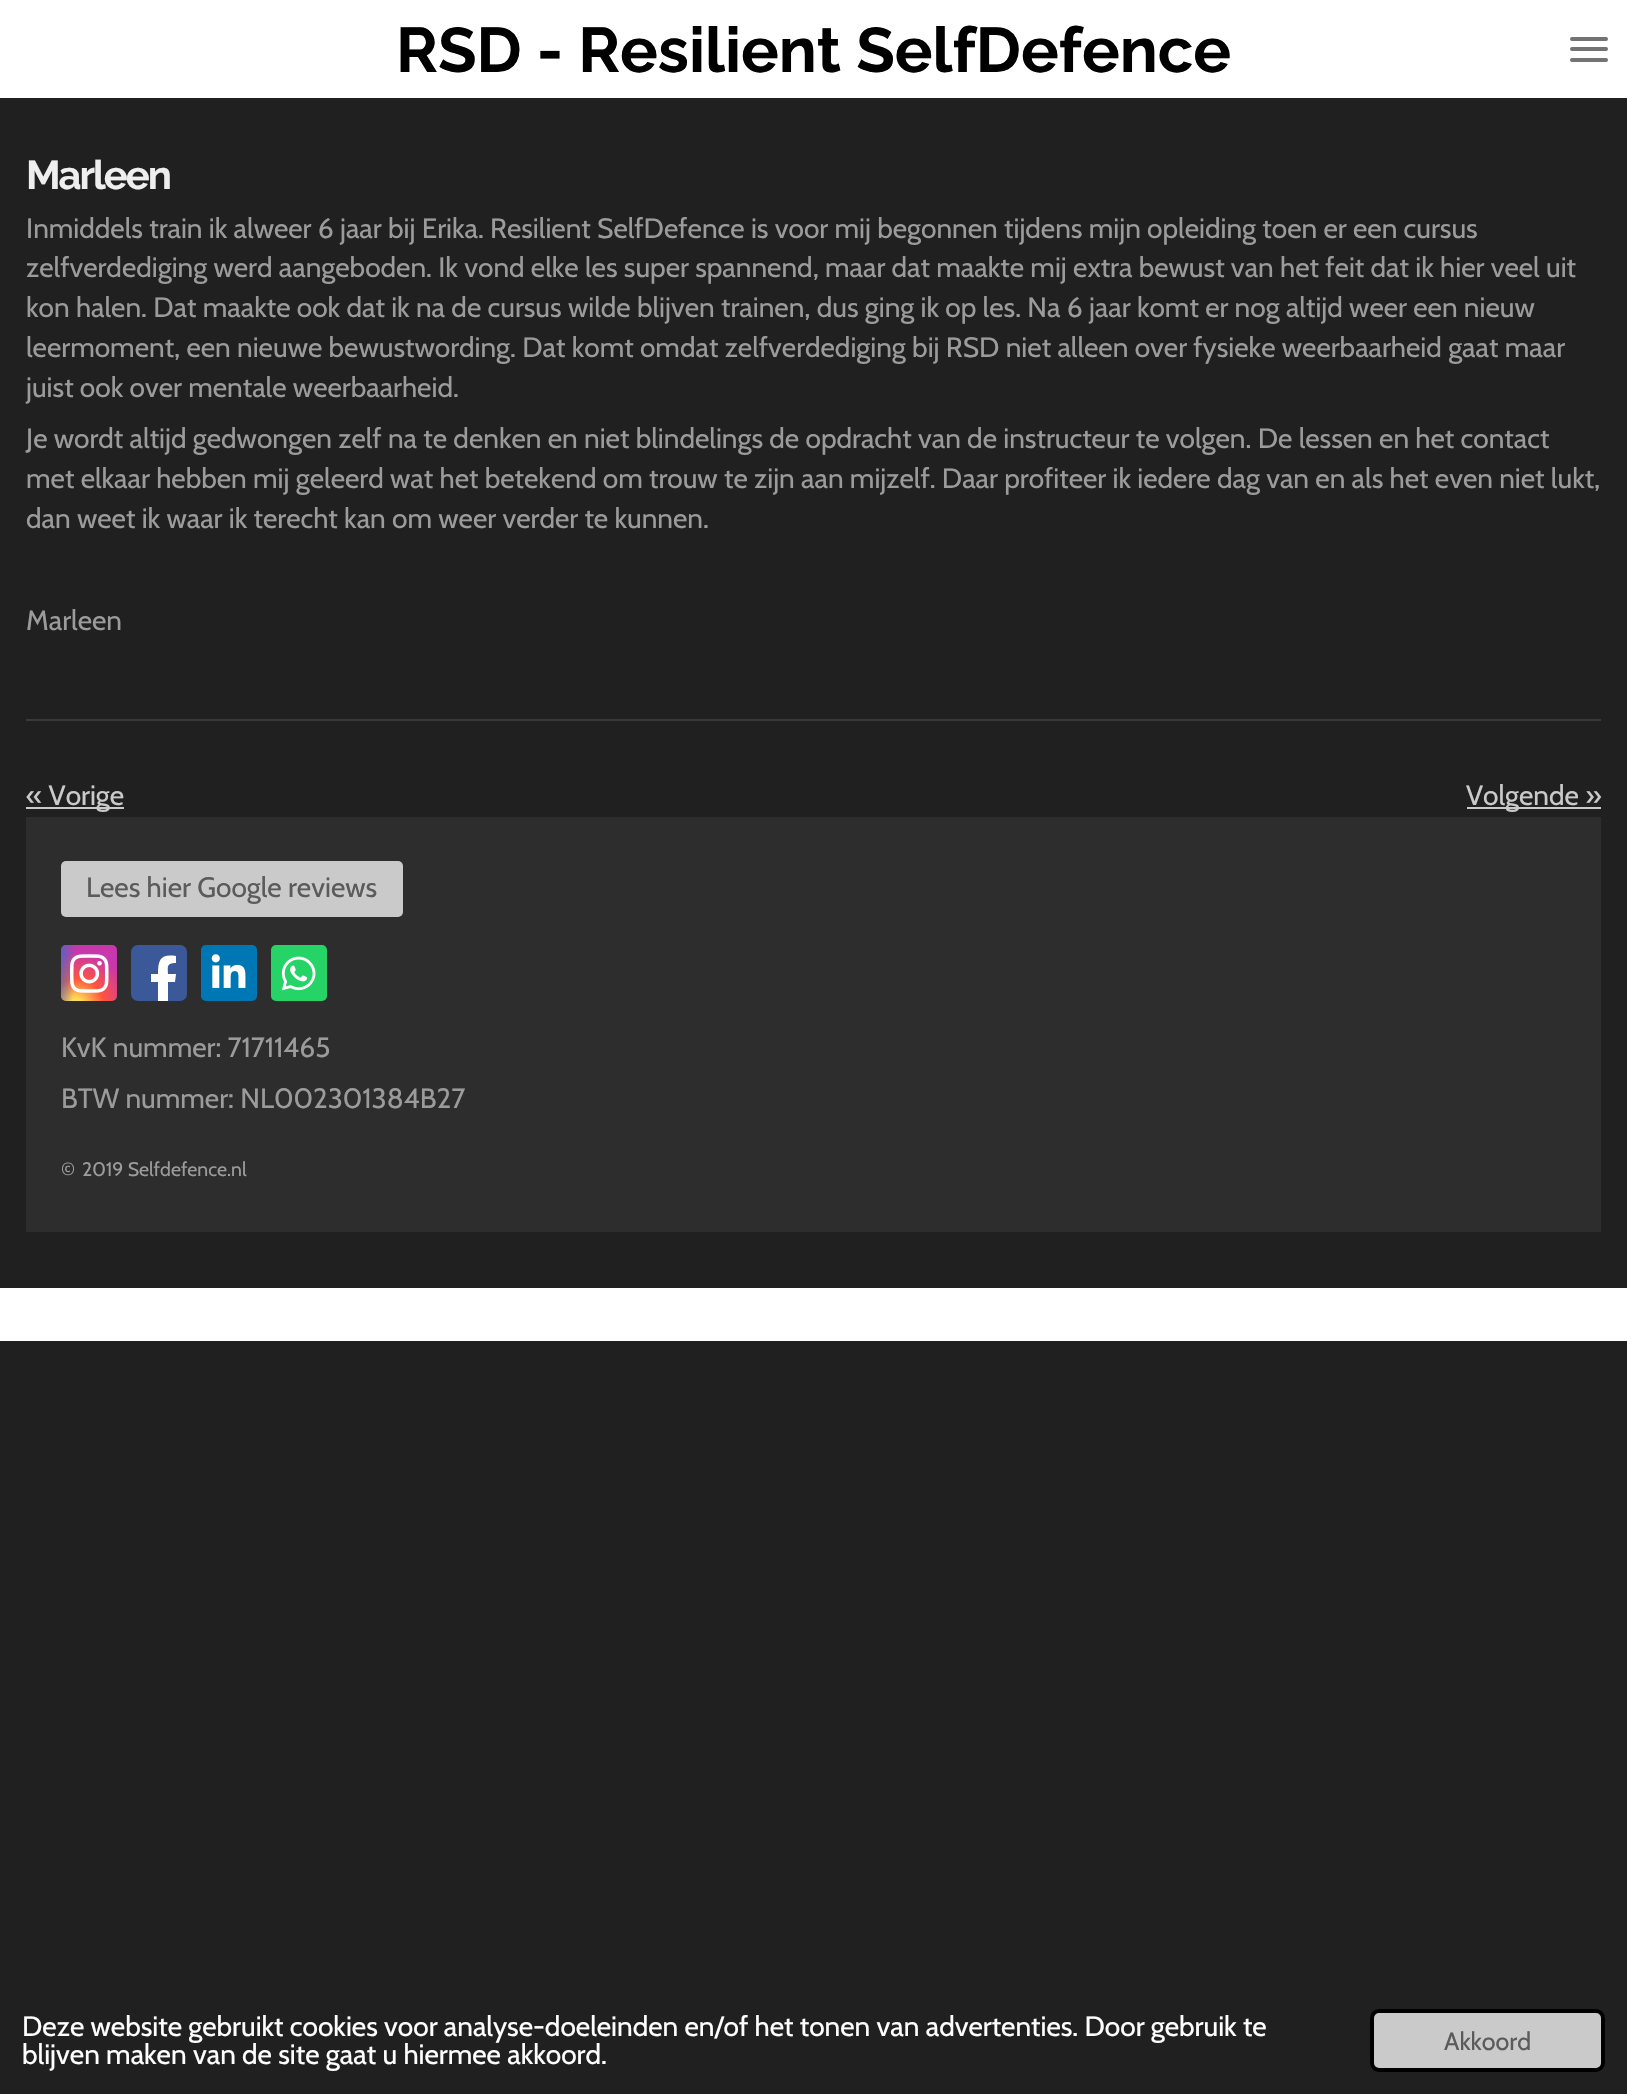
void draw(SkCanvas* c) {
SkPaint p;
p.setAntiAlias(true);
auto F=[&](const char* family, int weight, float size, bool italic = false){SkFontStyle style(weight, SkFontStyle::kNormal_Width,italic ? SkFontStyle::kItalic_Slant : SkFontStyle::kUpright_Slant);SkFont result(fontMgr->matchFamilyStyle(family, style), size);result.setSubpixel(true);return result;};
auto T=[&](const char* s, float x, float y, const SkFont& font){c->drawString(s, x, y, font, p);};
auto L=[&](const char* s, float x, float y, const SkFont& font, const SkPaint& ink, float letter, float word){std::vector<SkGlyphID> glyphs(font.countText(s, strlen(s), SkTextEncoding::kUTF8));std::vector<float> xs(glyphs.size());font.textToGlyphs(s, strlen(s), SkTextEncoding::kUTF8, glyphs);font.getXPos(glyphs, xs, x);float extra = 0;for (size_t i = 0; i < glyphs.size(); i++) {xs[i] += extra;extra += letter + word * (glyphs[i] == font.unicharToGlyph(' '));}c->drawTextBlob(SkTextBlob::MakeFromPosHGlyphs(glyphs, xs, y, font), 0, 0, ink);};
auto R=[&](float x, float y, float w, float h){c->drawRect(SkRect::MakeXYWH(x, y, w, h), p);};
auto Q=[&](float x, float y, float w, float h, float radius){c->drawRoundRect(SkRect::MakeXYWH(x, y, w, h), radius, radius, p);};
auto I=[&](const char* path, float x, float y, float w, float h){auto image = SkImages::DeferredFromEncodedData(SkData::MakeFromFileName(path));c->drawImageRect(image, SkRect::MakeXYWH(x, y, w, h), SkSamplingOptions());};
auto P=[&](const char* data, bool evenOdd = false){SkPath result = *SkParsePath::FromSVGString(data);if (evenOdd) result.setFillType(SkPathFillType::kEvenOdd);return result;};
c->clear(0xff202020);
p.setColor(0xffffffff);
R(0,0,77,98);
R(77,0,1550,98);
p.setColor(0xff737373);
Q(1570,47,38,4,2);
Q(1570,37,38,4,2);
Q(1570,58,38,4,2);
auto f1 = F("Raleway",700,63);
p.setColor(0xff000000);
T("RSD - Resilient SelfDefence",396,72,f1);
auto f2 = F("Raleway",700,40);
p.setColor(0xffeeeeee);
L("Marleen",26,189,f2,p,-2,0);
auto f3 = F("Cabin",400,28);
p.setColor(0xff9b9b9b);
T("Inmiddels train ik alweer 6 jaar bij Erika. Resilient SelfDefence is voor mij begonnen tijdens mijn opleiding toen er een cursus",26,238,f3);
T("zelfverdediging werd aangeboden. Ik vond elke les super spannend, maar dat maakte mij extra bewust van het feit dat ik hier veel uit",26,277,f3);
T("kon halen. Dat maakte ook dat ik na de cursus wilde blijven trainen, dus ging ik op les. Na 6 jaar komt er nog altijd weer een nieuw",26,317,f3);
T("leermoment, een nieuwe bewustwording. Dat komt omdat zelfverdediging bij RSD niet alleen over fysieke weerbaarheid gaat maar",26,357,f3);
T("juist ook over mentale weerbaarheid.",26,397,f3);
T("Je wordt altijd gedwongen zelf na te denken en niet blindelings de opdracht van de instructeur te volgen. De lessen en het contact",26,448,f3);
T("met elkaar hebben mij geleerd wat het betekend om trouw te zijn aan mijzelf. Daar profiteer ik iedere dag van en als het even niet lukt,",26,488,f3);
T("dan weet ik waar ik terecht kan om weer verder te kunnen.",26,528,f3);
T("Marleen",26,630,f3);
p.setColor(0xff393939);
R(26,719,1575,2);
p.setColor(0xffcacaca);
R(26,807,98,2);
T("« Vorige",26,805,f3);
R(1467,807,134,2);
T("Volgende »",1466,805,f3);
p.setColor(0xff2d2d2d);
R(26,817,1575,415);
p.setColor(0xffcacaca);
Q(61,861,342,56,5);
p.setColor(0xff5b5b5b);
T("Lees hier Google reviews",86,897,f3);
{
const SkColor colors[] = {0xffffdd55,0xffffdd55,0xffff543e,0xffc837ab};
const float stops[] = {0,.1,.5,1};
SkMatrix m = SkMatrix::Translate(76,1004).preScale(55,51);
p.setShader(SkGradientShader::MakeRadial({0, 0}, 1, colors, stops, 4, SkTileMode::kClamp, 0, &m));
p.setAlpha(255);
}
Q(61,945,56,56,5);
{
const SkColor colors[] = {0xff3771c8,0xff3771c8,0x003771c8};
const float stops[] = {0,.13,1};
SkMatrix m = SkMatrix::Translate(52,949).preScale(24,101);
p.setShader(SkGradientShader::MakeRadial({0, 0}, 1, colors, stops, 3, SkTileMode::kClamp, 0, &m));
p.setAlpha(255);
}
Q(61,945,56,56,5);
I("1.png",70,954,39,39);
p.setShader(nullptr);
p.setColor(0xff3b5998);
Q(131,945,56,56,7);
p.setColor(0xffffffff);
c->drawPath(P("M175 982h-7v19h-10v-19h-7v-8h7c0-15 3-20 18-18v7c-10 0-8 4-8 11h8z"),p);
p.setColor(0xff0077b5);
Q(201,945,56,56,5);
I("2.png",211,954,35,34);
p.setColor(0xff25d366);
Q(271,945,56,56,5);
I("3.png",281,956,35,35);
p.setColor(0xff9b9b9b);
T("KvK nummer: 71711465",61,1057,f3);
T("BTW nummer: NL002301384B27",61,1108,f3);
auto f4 = F("Cabin",400,19.5);
T("©",61,1176,f4);
T("2019 Selfdefence.nl",82,1176,f4);
p.setColor(0xffffffff);
R(0,1288,1627,53);
T("Deze website gebruikt cookies voor analyse-doeleinden en/of het tonen van advertenties. Door gebruik te",22,2036,f3);
T("blijven maken van de site gaat u hiermee akkoord.",22,2064,f3);
p.setColor(0xffcacaca);
c->drawRoundRect(SkRect::MakeXYWH(1372,2011,231,59),7,7,p);
p.setStroke(true);
p.setStrokeWidth(4);
p.setColor(0xff000000);
c->drawRoundRect(SkRect::MakeXYWH(1372,2011,231,59),7,7,p);
auto f5 = F("Cabin",400,25);
p.setStroke(false);
p.setColor(0xff5b5b5b);
T("Akkoord",1444,2050,f5);
}
